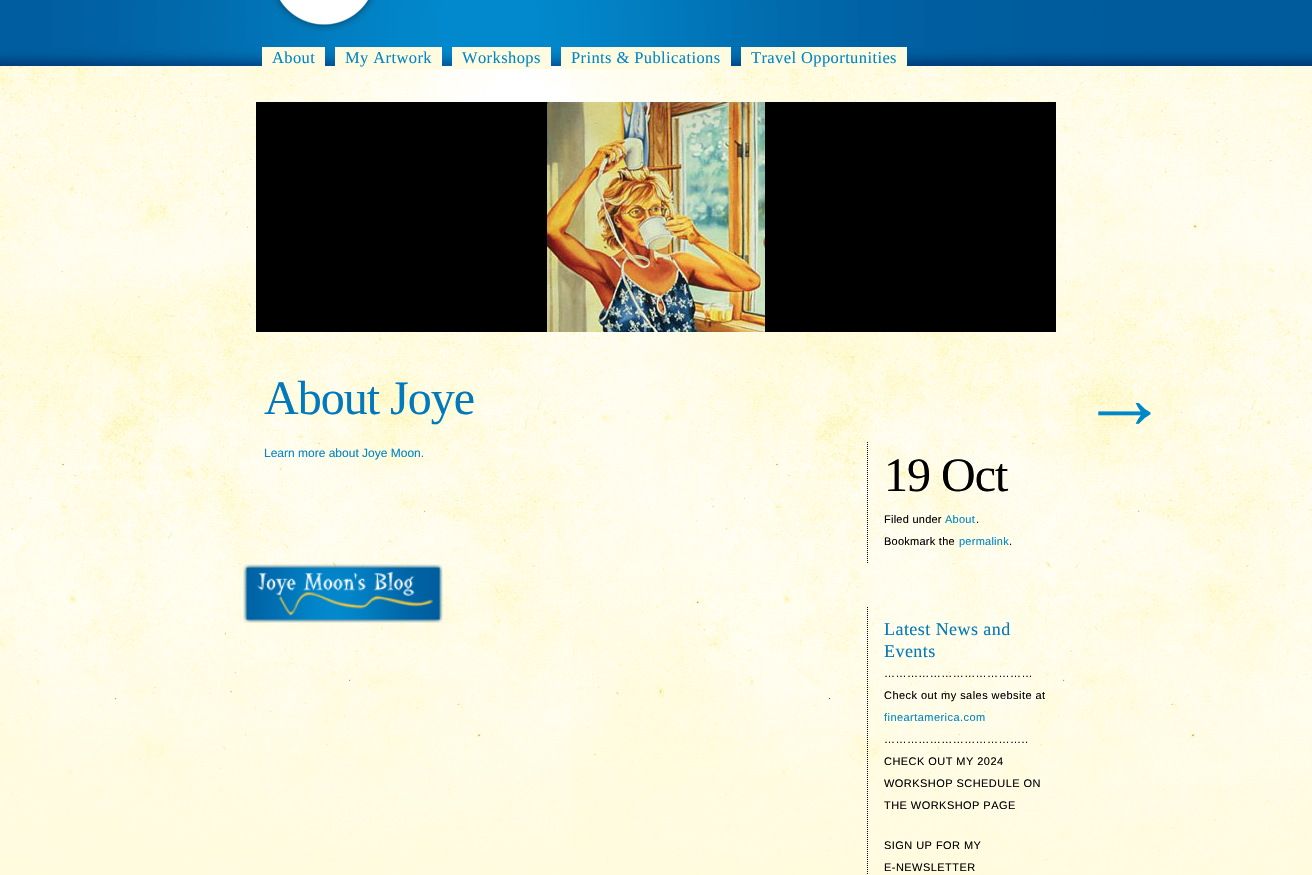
void draw(SkCanvas* c) {
SkPaint p;
p.setAntiAlias(true);
auto F=[&](const char* family, int weight, float size, bool italic = false){SkFontStyle style(weight, SkFontStyle::kNormal_Width,italic ? SkFontStyle::kItalic_Slant : SkFontStyle::kUpright_Slant);SkFont result(fontMgr->matchFamilyStyle(family, style), size);result.setSubpixel(true);return result;};
auto T=[&](const char* s, float x, float y, const SkFont& font){c->drawString(s, x, y, font, p);};
auto L=[&](const char* s, float x, float y, const SkFont& font, const SkPaint& ink, float letter, float word){std::vector<SkGlyphID> glyphs(font.countText(s, strlen(s), SkTextEncoding::kUTF8));std::vector<float> xs(glyphs.size());font.textToGlyphs(s, strlen(s), SkTextEncoding::kUTF8, glyphs);font.getXPos(glyphs, xs, x);float extra = 0;for (size_t i = 0; i < glyphs.size(); i++) {xs[i] += extra;extra += letter + word * (glyphs[i] == font.unicharToGlyph(' '));}c->drawTextBlob(SkTextBlob::MakeFromPosHGlyphs(glyphs, xs, y, font), 0, 0, ink);};
auto R=[&](float x, float y, float w, float h){c->drawRect(SkRect::MakeXYWH(x, y, w, h), p);};
auto I=[&](const char* path, float x, float y, float w, float h){auto image = SkImages::DeferredFromEncodedData(SkData::MakeFromFileName(path));c->drawImageRect(image, SkRect::MakeXYWH(x, y, w, h), SkSamplingOptions());};
auto P=[&](const char* data, bool evenOdd = false){SkPath result = *SkParsePath::FromSVGString(data);if (evenOdd) result.setFillType(SkPathFillType::kEvenOdd);return result;};
c->clear(0xffffffff);
I("1.png",0,0,1312,875);
I("2.png",272,0,104,32);
p.setColor(0xfffffbe0);
R(262,47,63,22);
auto f1 = F("Liberation Serif",400,16.5);
p.setColor(0xff0087c7);
L("About",272,63,f1,p,.4,0);
p.setColor(0xfffffbe0);
R(335,47,107,22);
p.setColor(0xff0087c7);
L("My Artwork",345,63,f1,p,.4,0);
p.setColor(0xfffffbe0);
R(452,47,99,22);
p.setColor(0xff0087c7);
L("Workshops",462,63,f1,p,.4,0);
p.setColor(0xfffffbe0);
R(561,47,170,22);
p.setColor(0xff0087c7);
L("Prints & Publications",571,63,f1,p,.4,0);
p.setColor(0xfffffbe0);
R(741,47,166,22);
p.setColor(0xff0087c7);
L("Travel Opportunities",751,63,f1,p,.4,0);
p.setColor(0xff000000);
R(256,102,800,230);
I("3.png",547,102,218,230);
auto f2 = F("Liberation Serif",400,48);
p.setColor(0xff0179bc);
L("About Joye",264,414,f2,p,-1,0);
auto f3 = F("Liberation Sans",400,12);
p.setColor(0xff0087c7);
T("Learn more about Joye Moon.",264,457,f3);
p.setStroke(true);
p.setStrokeWidth(1);
p.setColor(0xff000000);
p.setPathEffect(SkDashPathEffect::Make({{1,1}}, 0));
c->drawPath(P("M867.5 442v121"),p);
p.setPathEffect(nullptr);
p.setStroke(false);
L("19 Oct",884,491,f2,p,-1,0);
auto f4 = F("Liberation Sans",400,11);
L("Filed under",884,523,f4,p,.25,0);
p.setColor(0xff0087c7);
L("About",945,523,f4,p,.25,0);
p.setColor(0xff000000);
L(".",976,523,f4,p,.25,0);
L("Bookmark the",884,545,f4,p,.25,0);
p.setColor(0xff0087c7);
L("permalink",959,545,f4,p,.25,0);
p.setColor(0xff000000);
L(".",1009,545,f4,p,.25,0);
p.setStroke(true);
p.setPathEffect(SkDashPathEffect::Make({{1,1}}, 0));
c->drawPath(P("M867.5 607v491"),p);
p.setPathEffect(nullptr);
auto f5 = F("Liberation Serif",400,18);
p.setStroke(false);
p.setColor(0xff0179bc);
L("Latest News and",884,635,f5,p,.45,0);
L("Events",884,657,f5,p,.45,0);
p.setColor(0xff000000);
L("…………………………………",884,677,f4,p,.45,0);
L("Check out my sales website at",884,699,f4,p,.45,0);
p.setColor(0xff0087c7);
L("fineartamerica.com",884,721,f4,p,.45,0);
p.setColor(0xff000000);
L("………………………………..",884,743,f4,p,.45,0);
L("CHECK OUT MY 2024",884,765,f4,p,.45,0);
L("WORKSHOP SCHEDULE ON",884,787,f4,p,.45,0);
L("THE WORKSHOP PAGE",884,809,f4,p,.45,0);
L("SIGN UP FOR MY",884,849,f4,p,.45,0);
L("E-NEWSLETTER",884,871,f4,p,.45,0);
auto f6 = F("Liberation Mono",400,88);
p.setColor(0xff0087c7);
T("→",1098,428,f6);
I("4.png",243,564,200,59);
}
